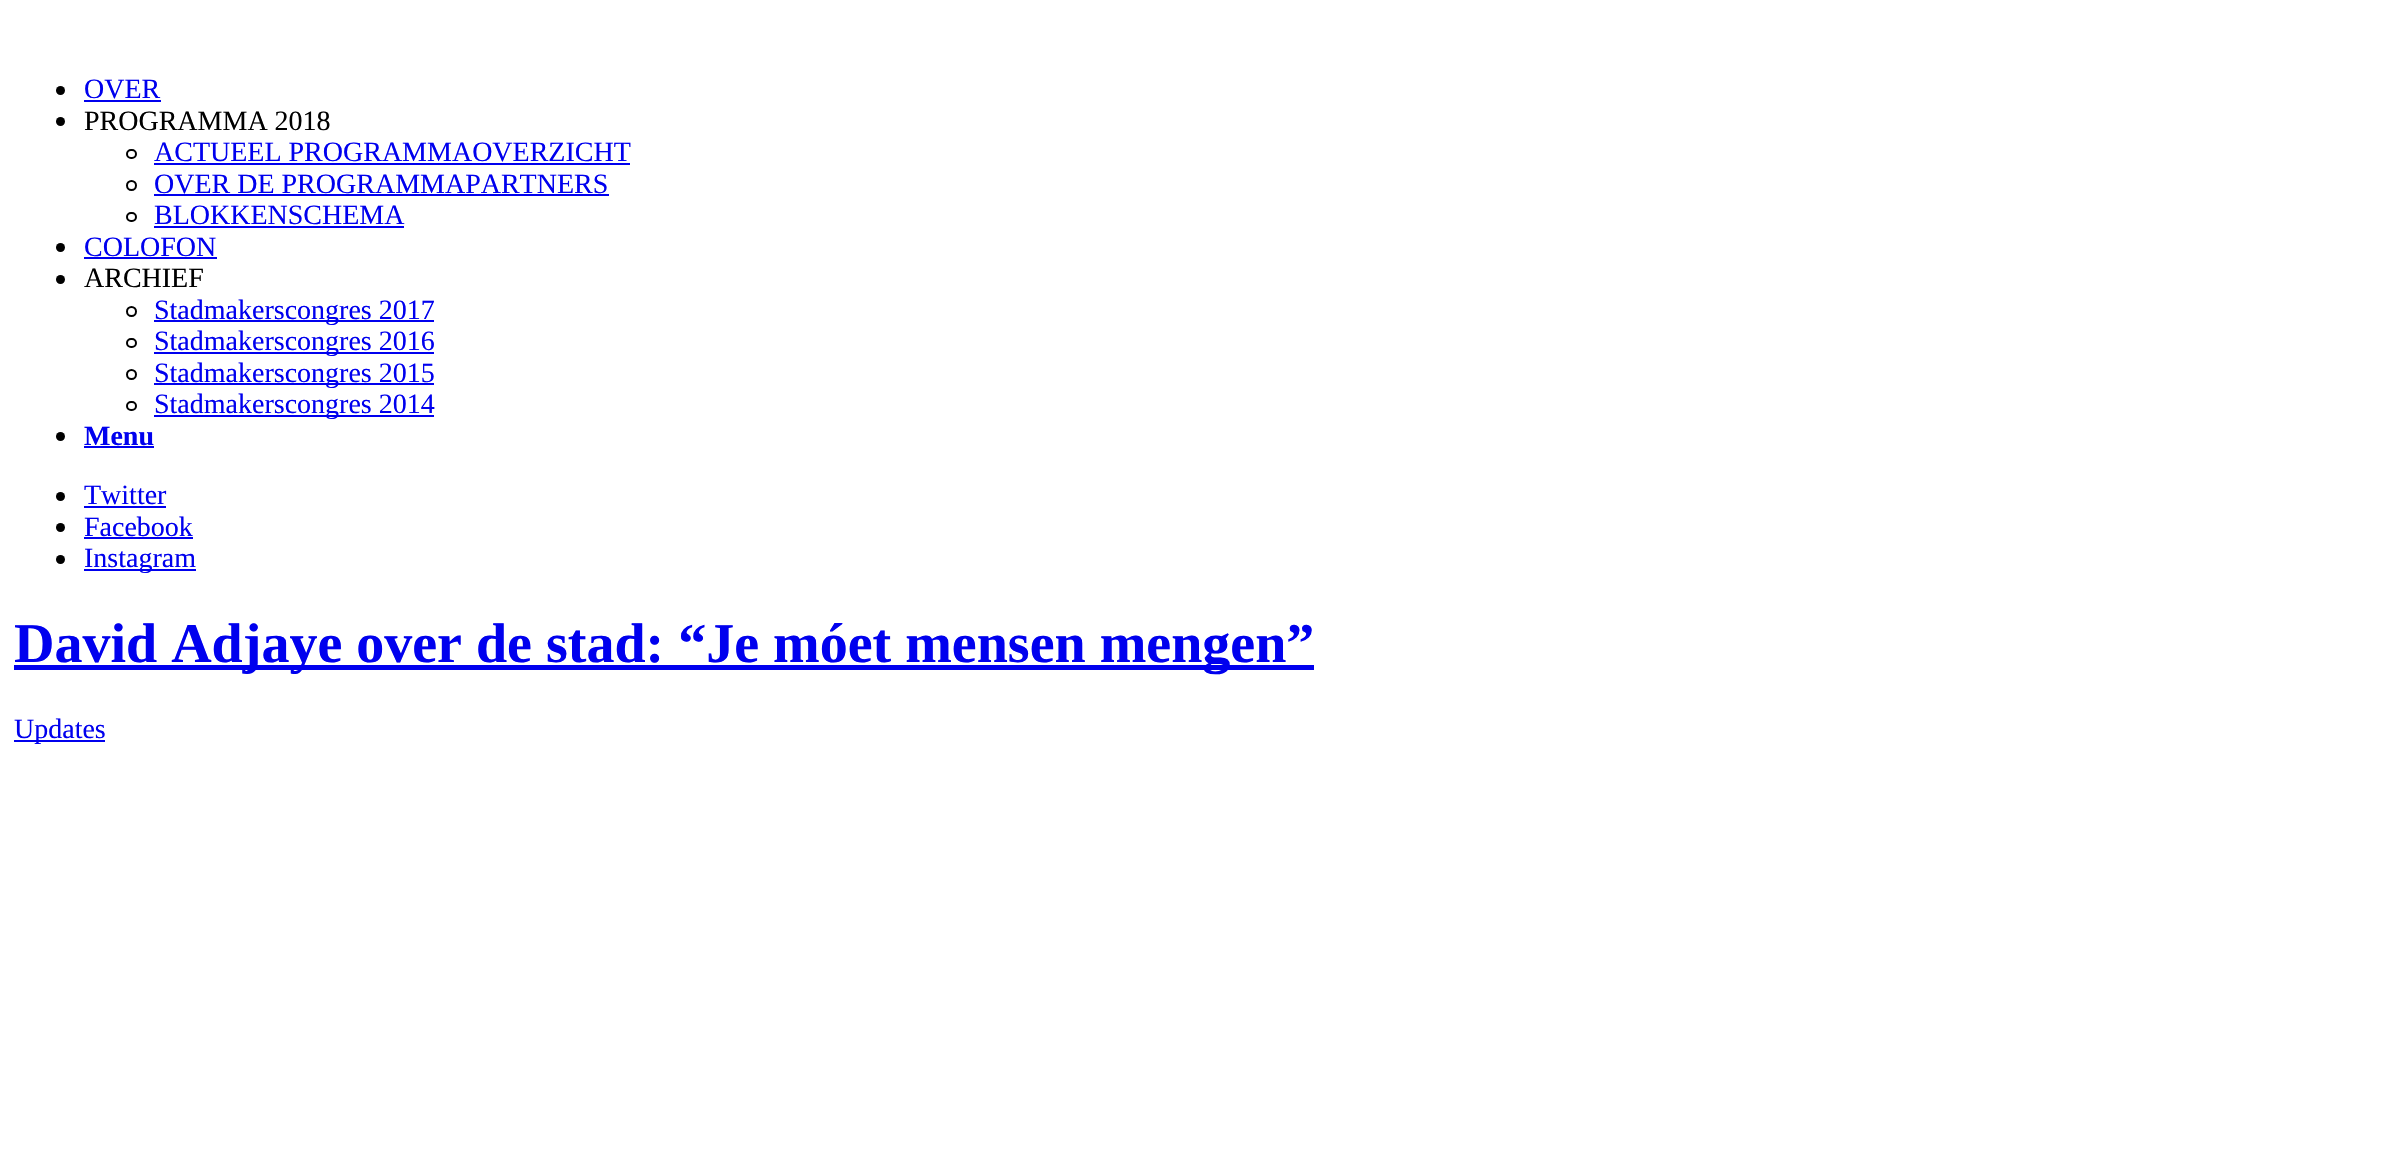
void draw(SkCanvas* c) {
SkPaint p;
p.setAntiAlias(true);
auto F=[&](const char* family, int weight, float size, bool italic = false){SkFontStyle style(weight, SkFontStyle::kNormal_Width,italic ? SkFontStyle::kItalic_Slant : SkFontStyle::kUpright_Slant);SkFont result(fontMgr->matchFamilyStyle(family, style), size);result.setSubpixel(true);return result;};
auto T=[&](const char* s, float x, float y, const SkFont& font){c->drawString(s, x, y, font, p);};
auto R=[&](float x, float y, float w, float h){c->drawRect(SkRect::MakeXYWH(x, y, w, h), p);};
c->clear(0xffffffff);
p.setColor(0xff000000);
c->drawCircle(60.5,90.5,4.5,p);
auto f1 = F("Liberation Serif",400,28);
p.setColor(0xff0000ee);
T("OVER",84,98,f1);
R(84,100,77,2);
p.setColor(0xff000000);
c->drawCircle(60.5,121.5,4.5,p);
T("PROGRAMMA 2018",84,130,f1);
p.setStroke(true);
p.setStrokeWidth(2);
c->drawRoundRect(SkRect::MakeXYWH(127,150,9,8),4,4,p);
p.setStroke(false);
p.setColor(0xff0000ee);
T("ACTUEEL PROGRAMMAOVERZICHT",154,161,f1);
R(154,163,476,2);
p.setStroke(true);
p.setColor(0xff000000);
c->drawCircle(131.5,185.5,4.5,p);
p.setStroke(false);
p.setColor(0xff0000ee);
T("OVER DE PROGRAMMAPARTNERS",154,193,f1);
R(154,194,455,2);
p.setStroke(true);
p.setColor(0xff000000);
c->drawRoundRect(SkRect::MakeXYWH(127,213,9,8),4,4,p);
p.setStroke(false);
p.setColor(0xff0000ee);
T("BLOKKENSCHEMA",154,224,f1);
R(154,226,250,2);
p.setColor(0xff000000);
c->drawCircle(60.5,247.5,4.5,p);
p.setColor(0xff0000ee);
T("COLOFON",84,256,f1);
R(84,257,133,2);
p.setColor(0xff000000);
c->drawCircle(60.5,279.5,4.5,p);
T("ARCHIEF",84,287,f1);
p.setStroke(true);
c->drawCircle(131.5,311.5,4.5,p);
p.setStroke(false);
p.setColor(0xff0000ee);
R(154,320,280,2);
T("Stadmakerscongres 2017",154,319,f1);
p.setStroke(true);
p.setColor(0xff000000);
c->drawRoundRect(SkRect::MakeXYWH(127,339,9,8),4,4,p);
p.setStroke(false);
p.setColor(0xff0000ee);
R(154,352,280,2);
T("Stadmakerscongres 2016",154,350,f1);
p.setStroke(true);
p.setColor(0xff000000);
c->drawCircle(131.5,374.5,4.5,p);
p.setStroke(false);
p.setColor(0xff0000ee);
R(154,383,280,2);
T("Stadmakerscongres 2015",154,382,f1);
p.setStroke(true);
p.setColor(0xff000000);
c->drawRoundRect(SkRect::MakeXYWH(127,402,9,8),4,4,p);
p.setStroke(false);
p.setColor(0xff0000ee);
R(154,415,280,2);
T("Stadmakerscongres 2014",154,413,f1);
p.setColor(0xff000000);
c->drawCircle(60.5,436.5,4.5,p);
auto f2 = F("Liberation Serif",700,28);
p.setColor(0xff0000ee);
T("Menu",84,445,f2);
R(84,446,70,2);
p.setColor(0xff000000);
c->drawCircle(60.5,496.5,4.5,p);
p.setColor(0xff0000ee);
T("Twitter",84,504,f1);
R(84,506,82,2);
p.setColor(0xff000000);
c->drawCircle(60.5,527.5,4.5,p);
p.setColor(0xff0000ee);
T("Facebook",84,536,f1);
R(84,537,109,2);
p.setColor(0xff000000);
c->drawCircle(60.5,559.5,4.5,p);
p.setColor(0xff0000ee);
R(84,569,112,2);
T("Instagram",84,567,f1);
R(14,665,1300,5);
auto f3 = F("Liberation Serif",700,56);
T("David Adjaye over de stad: “Je móet mensen mengen”",14,662,f3);
R(14,740,91,2);
T("Updates",14,738,f1);
}
